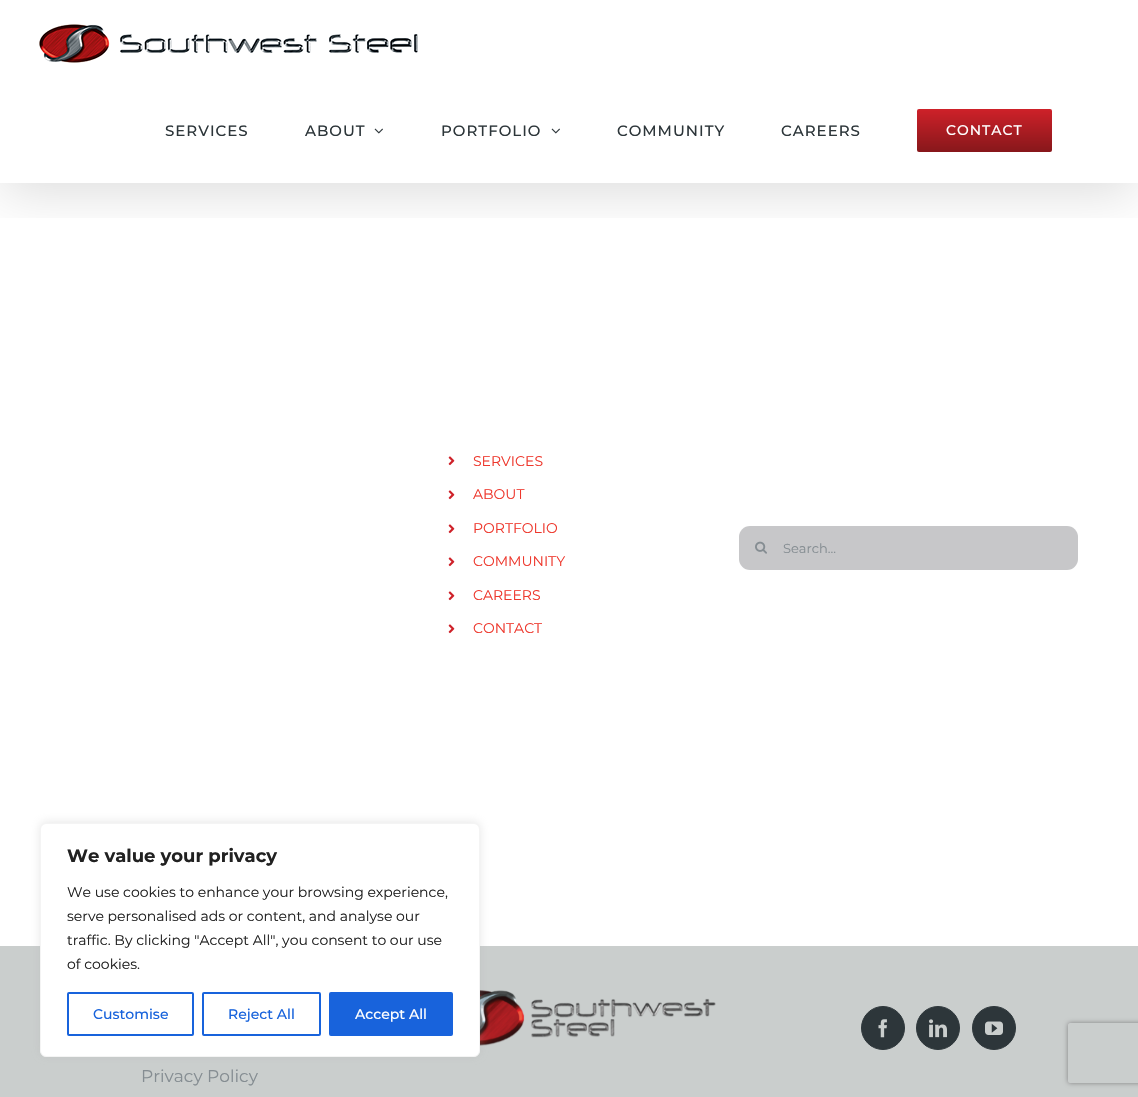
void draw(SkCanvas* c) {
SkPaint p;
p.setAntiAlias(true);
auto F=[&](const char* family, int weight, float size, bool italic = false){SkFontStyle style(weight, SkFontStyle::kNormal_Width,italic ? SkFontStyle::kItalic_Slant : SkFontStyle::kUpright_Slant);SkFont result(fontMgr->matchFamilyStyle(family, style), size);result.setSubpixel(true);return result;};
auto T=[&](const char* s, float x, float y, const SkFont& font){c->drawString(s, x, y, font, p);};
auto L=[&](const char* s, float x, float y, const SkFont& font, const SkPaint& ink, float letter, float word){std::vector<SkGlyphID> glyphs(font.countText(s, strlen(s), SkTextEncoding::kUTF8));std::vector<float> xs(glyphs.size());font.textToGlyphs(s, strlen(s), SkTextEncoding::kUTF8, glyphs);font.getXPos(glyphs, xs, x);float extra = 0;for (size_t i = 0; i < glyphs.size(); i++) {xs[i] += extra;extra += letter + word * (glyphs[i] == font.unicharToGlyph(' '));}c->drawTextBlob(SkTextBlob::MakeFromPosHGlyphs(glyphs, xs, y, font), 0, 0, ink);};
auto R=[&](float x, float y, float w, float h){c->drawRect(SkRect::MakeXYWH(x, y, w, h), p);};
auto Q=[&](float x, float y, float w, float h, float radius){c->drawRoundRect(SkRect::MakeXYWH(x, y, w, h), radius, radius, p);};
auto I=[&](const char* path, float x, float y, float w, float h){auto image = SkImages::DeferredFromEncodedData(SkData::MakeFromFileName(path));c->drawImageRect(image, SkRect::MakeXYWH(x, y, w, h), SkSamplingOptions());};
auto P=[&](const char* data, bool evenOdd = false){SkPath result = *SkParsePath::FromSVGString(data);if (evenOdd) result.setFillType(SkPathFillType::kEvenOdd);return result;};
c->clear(0xffffffff);
c->save();
c->clipRect(SkRect::MakeXYWH(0,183,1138,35));
p.setColor(0x24000000);
p.setMaskFilter(SkMaskFilter::MakeBlur(kNormal_SkBlurStyle, 25));
c->drawRect(SkRect::MakeXYWH(2,12,1134,179),p);
p.setMaskFilter(nullptr);
c->restore();
I("1.png",39,24,379,39);
auto f1 = F("Montserrat",500,15);
p.setColor(0xff2d363a);
L("SERVICES",165,136,f1,p,1,0);
L("ABOUT",305,136,f1,p,1,0);
I("2.png",374,128,9,6);
L("PORTFOLIO",441,136,f1,p,1,0);
I("2.png",551,128,9,6);
L("COMMUNITY",617,136,f1,p,1,0);
L("CAREERS",781,136,f1,p,1,0);
{
const SkColor colors[] = {0xffce2129,0xff87171b};
const float stops[] = {0,1};
const SkPoint ends[] = {{985,109}, {985,152}};
p.setShader(SkGradientShader::MakeLinear(ends, colors, stops, 2, SkTileMode::kClamp));
p.setAlpha(255);
}
Q(917,109,135,43,2);
auto f2 = F("Montserrat",500,14);
p.setShader(nullptr);
p.setColor(0xffffffff);
L("CONTACT",946,135,f2,p,1,0);
I("3.png",448,456,7,10);
auto f3 = F("Montserrat",400,14);
p.setColor(0xffee372c);
T("SERVICES",473,466,f3);
I("3.png",448,490,7,10);
T("ABOUT",473,499,f3);
I("3.png",448,524,7,10);
T("PORTFOLIO",473,533,f3);
I("3.png",448,557,7,10);
T("COMMUNITY",473,566,f3);
I("3.png",448,591,7,10);
T("CAREERS",473,600,f3);
I("3.png",448,624,7,10);
T("CONTACT",473,633,f3);
p.setColor(0xffc7c7c9);
Q(739,526,339,44,11);
I("4.png",755,541,12,13);
auto f4 = F("Montserrat",400,13);
p.setColor(0xff858d92);
T("Search...",783,553,f4);
p.setColor(0xffcacecd);
R(0,946,1138,151);
I("5.png",480,990,236,56);
p.setColor(0xff2d363a);
c->drawCircle(883,1028,21.5,p);
p.setStroke(true);
p.setStrokeWidth(1);
c->drawCircle(883,1028,21.5,p);
I("6.png",878,1019,9,19);
p.setStroke(false);
c->drawCircle(938,1028,21.5,p);
p.setStroke(true);
c->drawCircle(938,1028,21.5,p);
I("7.png",929,1019,18,19);
p.setStroke(false);
c->drawCircle(994,1028,21.5,p);
p.setStroke(true);
c->drawCircle(994,1028,21.5,p);
I("8.png",985,1021,18,14);
auto f5 = F("Montserrat",400,17);
p.setStroke(false);
p.setColor(0xff858d92);
T("Privacy Policy",141,1082,f5);
p.setColor(0x4dacabab);
p.setMaskFilter(SkMaskFilter::MakeBlur(kNormal_SkBlurStyle, 5));
c->drawRoundRect(SkRect::MakeXYWH(40,822,440,234),6,6,p);
p.setMaskFilter(nullptr);
p.setColor(0xffffffff);
c->drawRoundRect(SkRect::MakeXYWH(40.5,823.5,439,233),5.5,5.5,p);
p.setStroke(true);
p.setColor(0xfff4f4f4);
c->drawRoundRect(SkRect::MakeXYWH(40.5,823.5,439,233),5.5,5.5,p);
auto f6 = F("Montserrat",700,18);
p.setStroke(false);
p.setColor(0xff212121);
T("We value your privacy",67,862,f6);
T("We use cookies to enhance your browsing experience,",67,897,f3);
T("serve personalised ads or content, and analyse our",67,921,f3);
T("traffic. By clicking \"Accept All\", you consent to our use",67,945,f3);
T("of cookies.",67,969,f3);
p.setStroke(true);
p.setStrokeWidth(2);
p.setColor(0xff1863dc);
c->drawRoundRect(SkRect::MakeXYWH(68,993,125,42),1,1,p);
p.setStroke(false);
T("Customise",93,1019,f2);
p.setStroke(true);
c->drawRoundRect(SkRect::MakeXYWH(203,993,117,42),1,1,p);
p.setStroke(false);
T("Reject All",228,1019,f2);
c->drawRoundRect(SkRect::MakeXYWH(330,993,122,42),1,1,p);
p.setStroke(true);
c->drawRoundRect(SkRect::MakeXYWH(330,993,122,42),1,1,p);
p.setStroke(false);
p.setColor(0xffffffff);
T("Accept All",355,1019,f2);
c->save();
c->clipPath(P("M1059 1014h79v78h-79zm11 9h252c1 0 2 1 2 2v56c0 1-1 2-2 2h-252c-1 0-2-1-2-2v-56c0-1 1-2 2-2z",true),true);
p.setColor(0xff808080);
p.setMaskFilter(SkMaskFilter::MakeBlur(kNormal_SkBlurStyle, 2.5));
c->drawRoundRect(SkRect::MakeXYWH(1068,1023,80,60),2,2,p);
p.setMaskFilter(nullptr);
c->restore();
}
